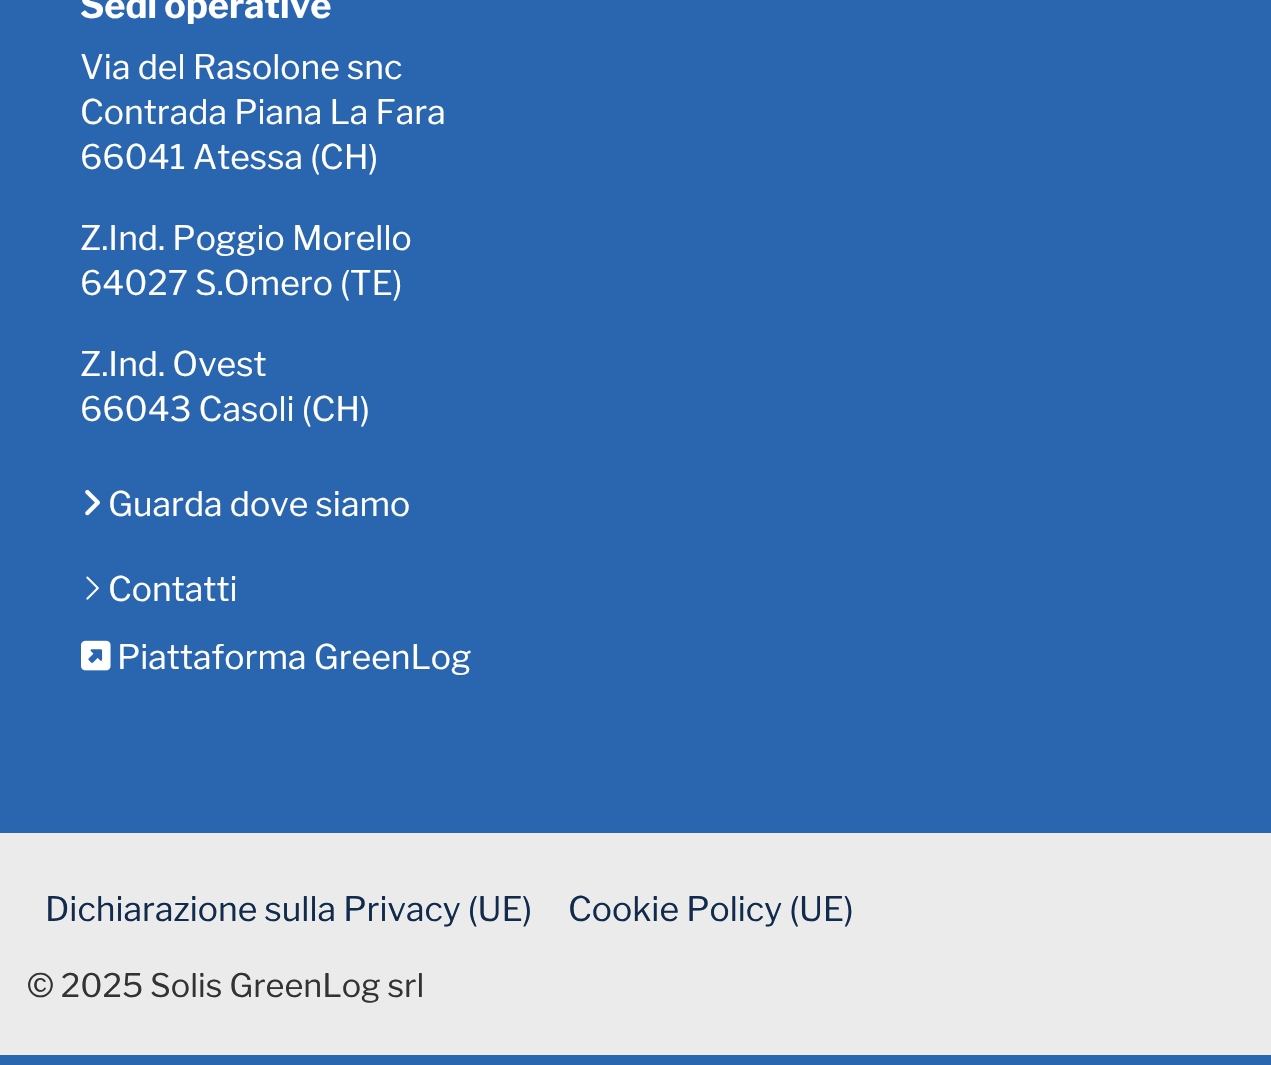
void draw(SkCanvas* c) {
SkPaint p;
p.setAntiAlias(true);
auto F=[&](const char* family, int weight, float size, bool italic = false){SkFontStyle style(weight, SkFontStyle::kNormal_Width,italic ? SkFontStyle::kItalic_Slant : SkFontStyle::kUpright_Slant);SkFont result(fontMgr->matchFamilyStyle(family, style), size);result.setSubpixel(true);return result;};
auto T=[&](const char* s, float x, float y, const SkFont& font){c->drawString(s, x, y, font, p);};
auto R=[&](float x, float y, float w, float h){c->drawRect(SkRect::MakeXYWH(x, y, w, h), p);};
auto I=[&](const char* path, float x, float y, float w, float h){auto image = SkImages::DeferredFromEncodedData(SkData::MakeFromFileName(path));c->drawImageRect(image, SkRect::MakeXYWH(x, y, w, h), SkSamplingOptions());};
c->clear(0xff2a65af);
auto f1 = F("Libre Franklin",700,36);
p.setColor(0xffffffff);
T("Sedi operative",80,18,f1);
auto f2 = F("Libre Franklin",400,33.75);
T("Via del Rasolone snc",80,79,f2);
T("Contrada Piana La Fara",80,124,f2);
T("66041 Atessa (CH)",80,169,f2);
T("Z.Ind. Poggio Morello",80,250,f2);
T("64027 S.Omero (TE)",80,295,f2);
T("Z.Ind. Ovest",80,376,f2);
T("66043 Casoli (CH)",80,421,f2);
I("1.png",85,489,15,27);
T("Guarda dove siamo",108,516,f2);
I("2.png",86,576,13,24);
T("Contatti",108,601,f2);
I("3.png",81,640,30,31);
T("Piattaforma GreenLog",117,669,f2);
p.setColor(0xffebebeb);
R(0,833,1271,222);
p.setColor(0xff122b4d);
T("Dichiarazione sulla Privacy (UE)",45,921,f2);
T("Cookie Policy (UE)",568,921,f2);
auto f3 = F("Libre Franklin",400,32.4);
p.setColor(0xff333333);
T("© 2025 Solis GreenLog srl",27,997,f3);
}
